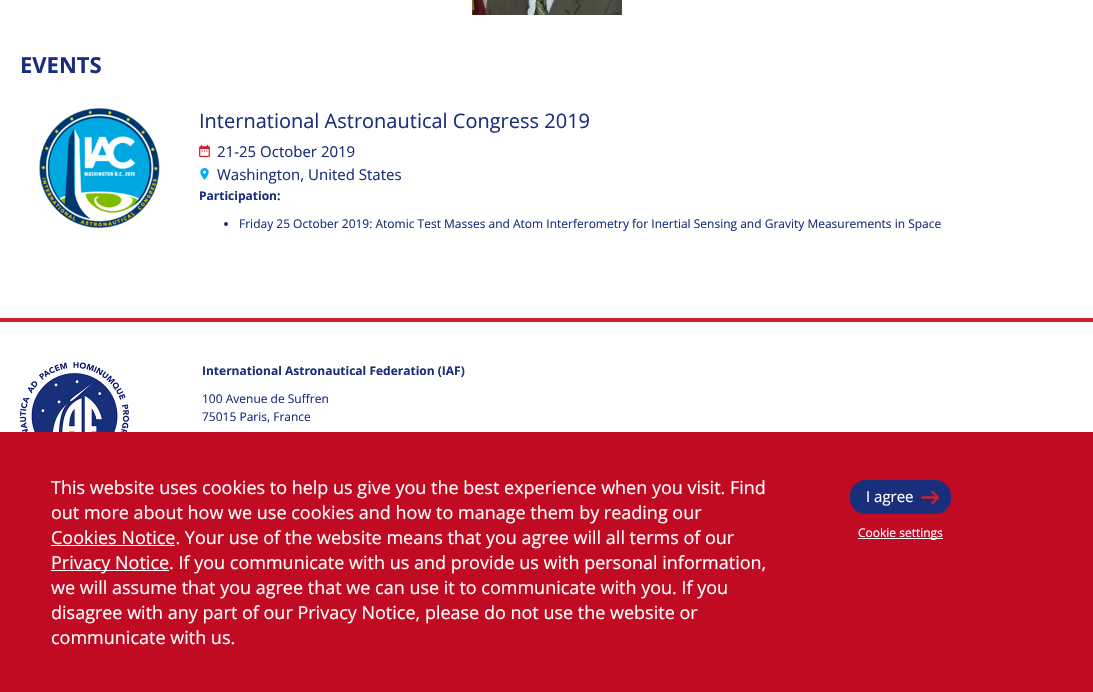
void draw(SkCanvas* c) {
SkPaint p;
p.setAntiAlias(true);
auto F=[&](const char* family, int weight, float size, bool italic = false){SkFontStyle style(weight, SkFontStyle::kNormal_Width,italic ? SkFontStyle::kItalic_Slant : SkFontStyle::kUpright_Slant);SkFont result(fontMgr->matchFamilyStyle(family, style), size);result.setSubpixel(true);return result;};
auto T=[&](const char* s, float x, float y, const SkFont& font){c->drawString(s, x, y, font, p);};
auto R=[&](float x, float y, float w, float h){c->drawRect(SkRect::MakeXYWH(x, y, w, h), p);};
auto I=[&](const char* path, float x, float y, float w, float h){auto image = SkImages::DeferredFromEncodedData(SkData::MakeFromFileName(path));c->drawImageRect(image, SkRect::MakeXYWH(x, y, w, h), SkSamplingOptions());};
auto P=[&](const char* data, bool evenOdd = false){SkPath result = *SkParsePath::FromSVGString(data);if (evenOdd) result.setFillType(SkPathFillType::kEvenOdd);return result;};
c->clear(0xffffffff);
I("1.png",472,0,150,15);
auto f1 = F("Open Sans",700,22);
p.setColor(0xff192f7c);
T("EVENTS",20,73,f1);
I("2.png",39,108,121,120);
auto f2 = F("Open Sans",400,20);
T("International Astronautical Congress 2019",199,128,f2);
I("3.png",199,145,11,12);
auto f3 = F("Open Sans",400,15);
T("21-25 October 2019",217,157,f3);
I("4.png",200,168,9,12);
T("Washington, United States",217,180,f3);
auto f4 = F("Open Sans",700,12);
T("Participation:",199,200,f4);
c->drawCircle(226,224,2,p);
auto f5 = F("Open Sans",400,12);
T("Friday 25 October 2019: Atomic Test Masses and Atom Interferometry for Inertial Sensing and Gravity Measurements in Space",239,228,f5);
p.setColor(0xffcf1e2e);
R(0,318,1093,4);
I("5.png",20,362,109,70);
p.setColor(0xff192f7c);
T("International Astronautical Federation (IAF)",202,375,f4);
T("100 Avenue de Suffren",202,403,f5);
T("75015 Paris, France",202,421,f5);
p.setColor(0xffc10b22);
R(0,432,1093,260);
auto f6 = F("Open Sans",400,18);
p.setColor(0xffffffff);
T("This website uses cookies to help us give you the best experience when you visit. Find",51,494,f6);
T("out more about how we use cookies and how to manage them by reading our",51,519,f6);
R(51,545,124,1);
T("Cookies Notice. Your use of the website means that you agree will all terms of our",51,544,f6);
R(51,570,118,1);
T("Privacy Notice. If you communicate with us and provide us with personal information,",51,569,f6);
T("we will assume that you agree that we can use it to communicate with you. If you",51,594,f6);
T("disagree with any part of our Privacy Notice, please do not use the website or",51,619,f6);
T("communicate with us.",51,644,f6);
p.setColor(0xff192f7c);
c->drawRoundRect(SkRect::MakeXYWH(850.5,480.5,100,33),14.5,14.5,p);
p.setStroke(true);
p.setStrokeWidth(1);
c->drawRoundRect(SkRect::MakeXYWH(850.5,480.5,100,33),14.5,14.5,p);
p.setStroke(false);
p.setColor(0xffffffff);
T("I agree",866,502,f3);
p.setStroke(true);
p.setStrokeWidth(2.4);
p.setStrokeCap(SkPaint::kRound_Cap);
p.setStrokeJoin(SkPaint::kRound_Join);
p.setColor(0xffcf1e2e);
c->drawPath(P("M922 497.5h15m-4.5-5.5l5.5 5.5l-5.5 5.5"),p);
p.setStroke(false);
p.setColor(0xffffffff);
R(858,538,85,1);
T("Cookie settings",858,537,f5);
}
